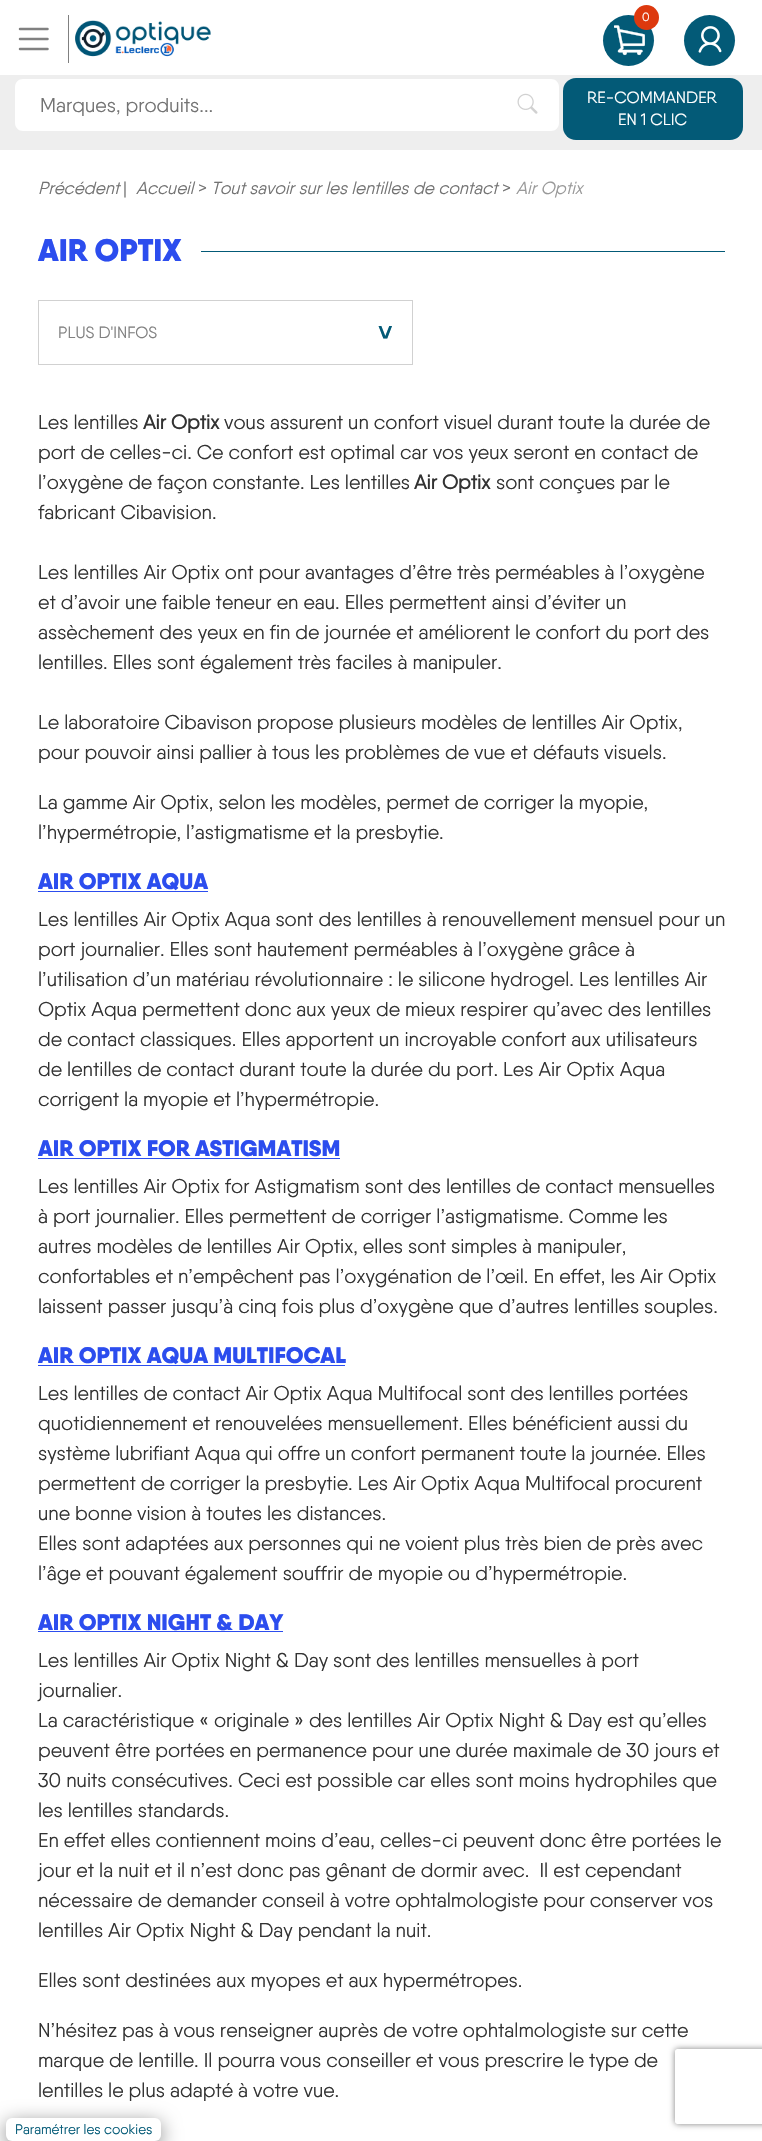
void draw(SkCanvas* c) {
SkPaint p;
p.setAntiAlias(true);
auto F=[&](const char* family, int weight, float size, bool italic = false){SkFontStyle style(weight, SkFontStyle::kNormal_Width,italic ? SkFontStyle::kItalic_Slant : SkFontStyle::kUpright_Slant);SkFont result(fontMgr->matchFamilyStyle(family, style), size);result.setSubpixel(true);return result;};
auto T=[&](const char* s, float x, float y, const SkFont& font){c->drawString(s, x, y, font, p);};
auto R=[&](float x, float y, float w, float h){c->drawRect(SkRect::MakeXYWH(x, y, w, h), p);};
auto Q=[&](float x, float y, float w, float h, float radius){c->drawRoundRect(SkRect::MakeXYWH(x, y, w, h), radius, radius, p);};
auto I=[&](const char* path, float x, float y, float w, float h){auto image = SkImages::DeferredFromEncodedData(SkData::MakeFromFileName(path));c->drawImageRect(image, SkRect::MakeXYWH(x, y, w, h), SkSamplingOptions());};
auto P=[&](const char* data, bool evenOdd = false){SkPath result = *SkParsePath::FromSVGString(data);if (evenOdd) result.setFillType(SkPathFillType::kEvenOdd);return result;};
c->clear(0xffffffff);
p.setColor(0xffeeeeee);
R(0,75,762,75);
p.setColor(0xffffffff);
c->drawPath(P("M23 79h475v52h-475c-4.5 0-8-3.5-8-8v-36c0-4.5 3.5-8 8-8z"),p);
auto f1 = F("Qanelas",400,20);
p.setColor(0xff737373);
T("Marques, produits...",40,112,f1);
p.setColor(0xffffffff);
c->drawPath(P("M496 79h55c4.5 0 8 3.5 8 8v36c0 4.5-3.5 8-8 8h-55z"),p);
I("1.png",517,93,21,21);
p.setColor(0xff035a77);
c->drawCircle(628.5,40.5,25.5,p);
I("2.png",614,25,31,31);
p.setColor(0xffdd390e);
c->drawCircle(646.5,17.5,12.5,p);
auto f2 = F("Qanelas",400,12);
p.setColor(0xffffffff);
T("0",642,21,f2);
p.setColor(0xff035a77);
c->drawCircle(709.5,40.5,25.5,p);
I("3.png",698,26,24,27);
Q(563,78,180,62,13);
auto f3 = F("Qanelas",400,16.25);
p.setColor(0xffffffff);
T("RE-COMMANDER",587,103,f3);
T("EN 1 CLIC",618,125,f3);
p.setColor(0xff808080);
R(68,15,1,48);
p.setStroke(true);
p.setStrokeWidth(2.5);
p.setStrokeCap(SkPaint::kRound_Cap);
c->drawPath(P("M20 29h27.5m-27.5 10h27.5m-27.5 10h27.5"),p);
I("4.png",75,20,136,37);
auto f4 = F("Qanelas",400,17.5,true);
p.setStroke(false);
p.setColor(0xff737373);
T("Précédent",38,194,f4);
auto f5 = F("Qanelas",400,17.5);
T("|",123,194,f5);
T("Accueil",136,194,f4);
T(">",198,194,f5);
T("Tout savoir sur les lentilles de contact",211,194,f4);
T(">",502,194,f5);
p.setColor(0xff999999);
T("Air Optix",516,194,f4);
auto f6 = F("Qanelas",900,31.25);
p.setColor(0xff2c4dee);
T("AIR OPTIX",38,261,f6);
p.setColor(0xff035a77);
R(201,251,524,1);
p.setStroke(true);
p.setStrokeWidth(1);
p.setStrokeCap(SkPaint::kButt_Cap);
p.setColor(0xffd1d1d1);
c->drawRect(SkRect::MakeXYWH(38.5,300.5,374,64),p);
p.setStroke(false);
p.setColor(0xff818181);
T("PLUS D'INFOS",58,338,f3);
auto f7 = F("Liberation Sans",700,25);
p.setColor(0xff035a77);
T("˅",378,341,f7);
p.setColor(0xff333333);
T("Les lentilles",38,429,f1);
auto f8 = F("Qanelas",700,20);
T("Air Optix",143,429,f8);
T("vous assurent un confort visuel durant toute la durée de",224,429,f1);
T("port de celles-ci. Ce confort est optimal car vos yeux seront en contact de",38,459,f1);
T("l’oxygène de façon constante. Les lentilles",38,489,f1);
T("Air Optix",414,489,f8);
T("sont conçues par le",496,489,f1);
T("fabricant Cibavision.",38,519,f1);
T("Les lentilles Air Optix ont pour avantages d’être très perméables à l’oxygène",38,579,f1);
T("et d’avoir une faible teneur en eau. Elles permettent ainsi d’éviter un",38,609,f1);
T("assèchement des yeux en fin de journée et améliorent le confort du port des",38,639,f1);
T("lentilles. Elles sont également très faciles à manipuler.",38,669,f1);
T("Le laboratoire Cibavison propose plusieurs modèles de lentilles Air Optix,",38,729,f1);
T("pour pouvoir ainsi pallier à tous les problèmes de vue et défauts visuels.",38,759,f1);
T("La gamme Air Optix, selon les modèles, permet de corriger la myopie,",38,809,f1);
T("l’hypermétropie, l’astigmatisme et la presbytie.",38,839,f1);
auto f9 = F("Qanelas",900,22.5);
p.setColor(0xff2c4dee);
T("AIR OPTIX AQUA",38,889,f9);
R(38,891,170,1);
p.setColor(0xff333333);
T("Les lentilles Air Optix Aqua sont des lentilles à renouvellement mensuel pour un",38,926,f1);
T("port journalier. Elles sont hautement perméables à l’oxygène grâce à",38,956,f1);
T("l’utilisation d’un matériau révolutionnaire : le silicone hydrogel. Les lentilles Air",38,986,f1);
T("Optix Aqua permettent donc aux yeux de mieux respirer qu’avec des lentilles",38,1016,f1);
T("de contact classiques. Elles apportent un incroyable confort aux utilisateurs",38,1046,f1);
T("de lentilles de contact durant toute la durée du port. Les Air Optix Aqua",38,1076,f1);
T("corrigent la myopie et l’hypermétropie.",38,1106,f1);
p.setColor(0xff2c4dee);
T("AIR OPTIX FOR ASTIGMATISM",38,1156,f9);
R(38,1158,302,1);
p.setColor(0xff333333);
T("Les lentilles Air Optix for Astigmatism sont des lentilles de contact mensuelles",38,1193,f1);
T("à port journalier. Elles permettent de corriger l’astigmatisme. Comme les",38,1223,f1);
T("autres modèles de lentilles Air Optix, elles sont simples à manipuler,",38,1253,f1);
T("confortables et n’empêchent pas l’oxygénation de l’œil. En effet, les Air Optix",38,1283,f1);
T("laissent passer jusqu’à cinq fois plus d’oxygène que d’autres lentilles souples.",38,1313,f1);
p.setColor(0xff2c4dee);
T("AIR OPTIX AQUA MULTIFOCAL",38,1363,f9);
R(38,1365,307,1);
p.setColor(0xff333333);
T("Les lentilles de contact Air Optix Aqua Multifocal sont des lentilles portées",38,1400,f1);
T("quotidiennement et renouvelées mensuellement. Elles bénéficient aussi du",38,1430,f1);
T("système lubrifiant Aqua qui offre un confort permanent toute la journée. Elles",38,1460,f1);
T("permettent de corriger la presbytie. Les Air Optix Aqua Multifocal procurent",38,1490,f1);
T("une bonne vision à toutes les distances.",38,1520,f1);
T("Elles sont adaptées aux personnes qui ne voient plus très bien de près avec",38,1550,f1);
T("l’âge et pouvant également souffrir de myopie ou d’hypermétropie.",38,1580,f1);
p.setColor(0xff2c4dee);
T("AIR OPTIX NIGHT & DAY",38,1630,f9);
R(38,1631,245,1);
p.setColor(0xff333333);
T("Les lentilles Air Optix Night & Day sont des lentilles mensuelles à port",38,1667,f1);
T("journalier.",38,1697,f1);
T("La caractéristique « originale » des lentilles Air Optix Night & Day est qu’elles",38,1727,f1);
T("peuvent être portées en permanence pour une durée maximale de 30 jours et",38,1757,f1);
T("30 nuits consécutives. Ceci est possible car elles sont moins hydrophiles que",38,1787,f1);
T("les lentilles standards.",38,1817,f1);
T("En effet elles contiennent moins d’eau, celles-ci peuvent donc être portées le",38,1847,f1);
T("jour et la nuit et il n’est donc pas gênant de dormir avec.  Il est cependant",38,1877,f1);
T("nécessaire de demander conseil à votre ophtalmologiste pour conserver vos",38,1907,f1);
T("lentilles Air Optix Night & Day pendant la nuit.",38,1937,f1);
T("Elles sont destinées aux myopes et aux hypermétropes.",38,1987,f1);
T("N’hésitez pas à vous renseigner auprès de votre ophtalmologiste sur cette",38,2037,f1);
T("marque de lentille. Il pourra vous conseiller et vous prescrire le type de",38,2067,f1);
T("lentilles le plus adapté à votre vue.",38,2097,f1);
p.setColor(0x80000000);
p.setMaskFilter(SkMaskFilter::MakeBlur(kNormal_SkBlurStyle, 10));
c->drawRoundRect(SkRect::MakeXYWH(6,2123,155,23),6,6,p);
p.setMaskFilter(nullptr);
p.setColor(0xffffffff);
Q(6,2118,155,23,6);
auto f10 = F("Qanelas",400,13.75);
p.setColor(0xff035a77);
T("Paramétrer les cookies",15,2134,f10);
c->save();
c->clipPath(P("M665 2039h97v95h-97zm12.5 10h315c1.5 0 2.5 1 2.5 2.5v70c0 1.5-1 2.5-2.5 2.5h-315c-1.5 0-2.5-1-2.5-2.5v-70c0-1.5 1-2.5 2.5-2.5z",true),true);
p.setColor(0xff808080);
p.setMaskFilter(SkMaskFilter::MakeBlur(kNormal_SkBlurStyle, 3));
c->drawRoundRect(SkRect::MakeXYWH(675,2049,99,75),2.5,2.5,p);
p.setMaskFilter(nullptr);
c->restore();
}
